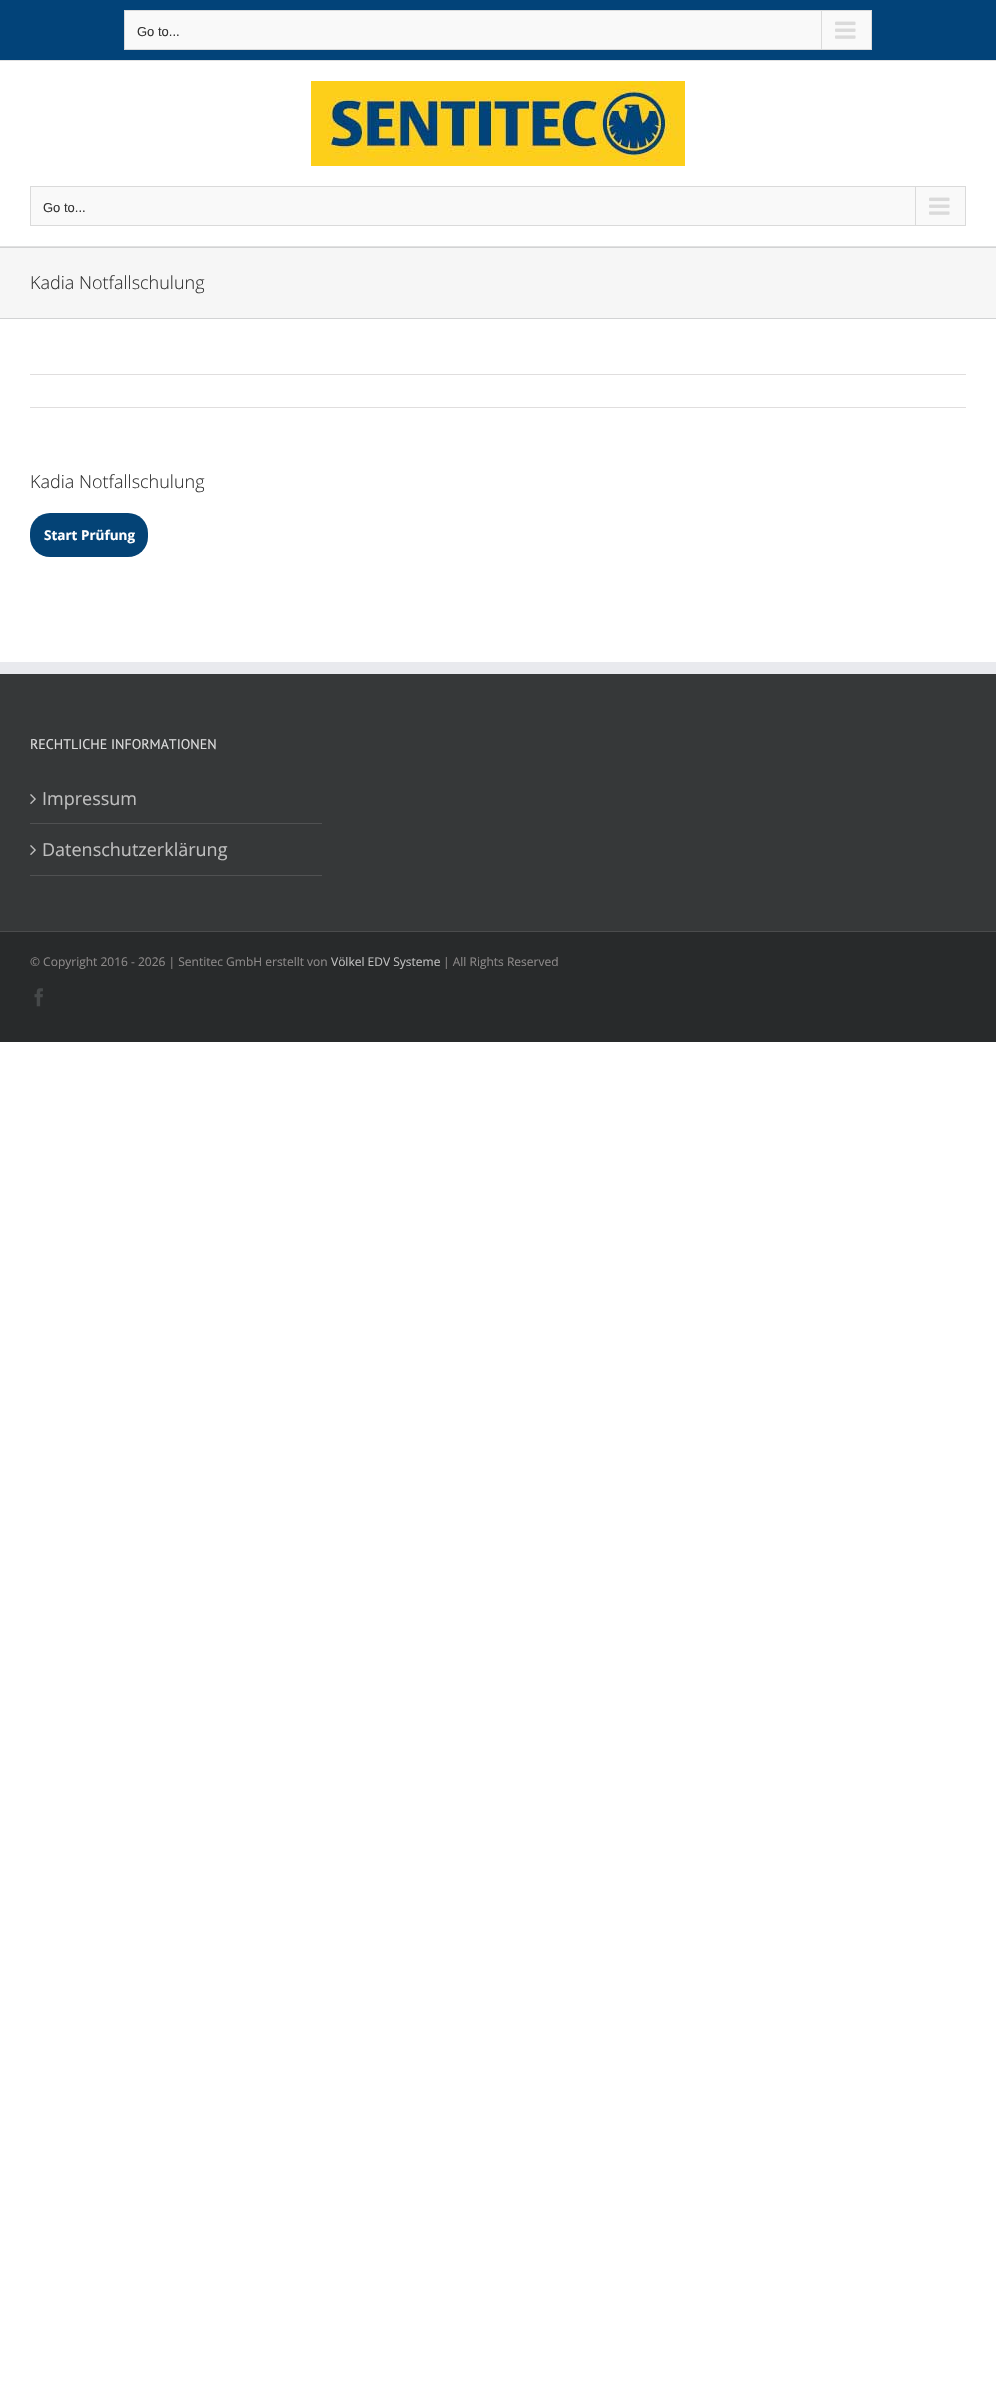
void draw(SkCanvas* c) {
SkPaint p;
p.setAntiAlias(true);
auto F=[&](const char* family, int weight, float size, bool italic = false){SkFontStyle style(weight, SkFontStyle::kNormal_Width,italic ? SkFontStyle::kItalic_Slant : SkFontStyle::kUpright_Slant);SkFont result(fontMgr->matchFamilyStyle(family, style), size);result.setSubpixel(true);return result;};
auto T=[&](const char* s, float x, float y, const SkFont& font){c->drawString(s, x, y, font, p);};
auto R=[&](float x, float y, float w, float h){c->drawRect(SkRect::MakeXYWH(x, y, w, h), p);};
auto Q=[&](float x, float y, float w, float h, float radius){c->drawRoundRect(SkRect::MakeXYWH(x, y, w, h), radius, radius, p);};
auto I=[&](const char* path, float x, float y, float w, float h){auto image = SkImages::DeferredFromEncodedData(SkData::MakeFromFileName(path));c->drawImageRect(image, SkRect::MakeXYWH(x, y, w, h), SkSamplingOptions());};
c->clear(0xffffffff);
p.setColor(0xff024379);
R(0,0,996,60);
p.setColor(0xffe1e1e1);
R(0,60,996,1);
p.setColor(0xfff9f9f9);
c->drawRect(SkRect::MakeXYWH(124.5,10.5,747,39),p);
p.setStroke(true);
p.setStrokeWidth(1);
p.setColor(0xffdadada);
c->drawRect(SkRect::MakeXYWH(124.5,10.5,747,39),p);
auto f1 = F("Liberation Sans",400,13);
p.setStroke(false);
p.setColor(0xff333333);
T("Go to...",137,36,f1);
p.setColor(0xffdadada);
R(821,11,1,38);
I("1.png",835,21,21,18);
p.setColor(0xffe1e1e1);
R(0,246,996,1);
I("2.png",311,81,374,85);
p.setColor(0xfff9f9f9);
c->drawRect(SkRect::MakeXYWH(30.5,186.5,935,39),p);
p.setStroke(true);
p.setColor(0xffdadada);
c->drawRect(SkRect::MakeXYWH(30.5,186.5,935,39),p);
p.setStroke(false);
p.setColor(0xff333333);
T("Go to...",43,212,f1);
p.setColor(0xffdadada);
R(915,187,1,38);
I("1.png",929,197,21,18);
p.setColor(0xfff6f6f6);
R(0,248,996,70);
p.setColor(0xffd2d3d4);
R(0,247,996,1);
R(0,318,996,1);
auto f2 = F("Open Sans",300,18);
p.setColor(0xff333333);
T("Kadia Notfallschulung",30,289,f2);
p.setColor(0xffe0dede);
R(30,374,936,1);
R(30,407,936,1);
p.setColor(0xff333333);
T("Kadia Notfallschulung",30,488,f2);
p.setColor(0xff044376);
Q(30,513,118,44,20);
auto f3 = F("Open Sans",700,13.5);
p.setColor(0xffffffff);
T("Start Prüfung",44,540,f3);
p.setColor(0xff363839);
R(0,674,996,257);
p.setColor(0xffe9eaee);
R(0,662,996,12);
auto f4 = F("PT Sans",400,14);
p.setColor(0xffdddddd);
T("RECHTLICHE INFORMATIONEN",30,749,f4);
p.setColor(0xff505152);
R(30,823,292,1);
I("3.png",30,794,6,10);
auto f5 = F("Open Sans",400,18);
p.setColor(0xffbfbfbf);
T("Impressum",42,805,f5);
p.setColor(0xff505152);
R(30,875,292,1);
I("3.png",30,845,6,10);
p.setColor(0xffbfbfbf);
T("Datenschutzerklärung",42,856,f5);
p.setColor(0xff282a2b);
R(0,932,996,110);
p.setColor(0xff4b4c4d);
R(0,931,996,1);
auto f6 = F("Open Sans",400,12);
p.setColor(0xff8c8989);
T("© Copyright 2016 - 2026 | Sentitec GmbH erstellt von",30,966,f6);
p.setColor(0xffbfbfbf);
T("Völkel EDV Systeme",331,966,f6);
p.setColor(0xff8c8989);
T("| All Rights Reserved",443,966,f6);
I("4.png",34,988,9,19);
}
